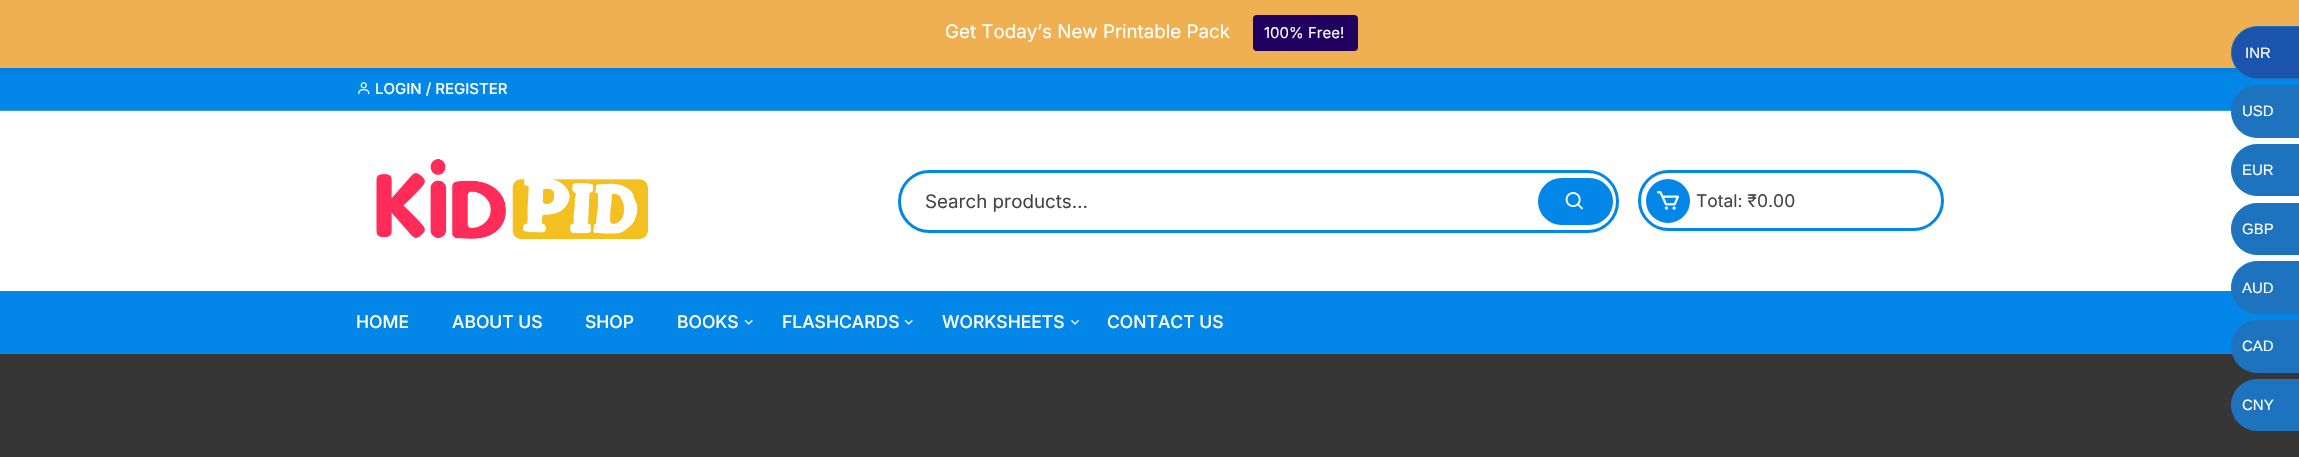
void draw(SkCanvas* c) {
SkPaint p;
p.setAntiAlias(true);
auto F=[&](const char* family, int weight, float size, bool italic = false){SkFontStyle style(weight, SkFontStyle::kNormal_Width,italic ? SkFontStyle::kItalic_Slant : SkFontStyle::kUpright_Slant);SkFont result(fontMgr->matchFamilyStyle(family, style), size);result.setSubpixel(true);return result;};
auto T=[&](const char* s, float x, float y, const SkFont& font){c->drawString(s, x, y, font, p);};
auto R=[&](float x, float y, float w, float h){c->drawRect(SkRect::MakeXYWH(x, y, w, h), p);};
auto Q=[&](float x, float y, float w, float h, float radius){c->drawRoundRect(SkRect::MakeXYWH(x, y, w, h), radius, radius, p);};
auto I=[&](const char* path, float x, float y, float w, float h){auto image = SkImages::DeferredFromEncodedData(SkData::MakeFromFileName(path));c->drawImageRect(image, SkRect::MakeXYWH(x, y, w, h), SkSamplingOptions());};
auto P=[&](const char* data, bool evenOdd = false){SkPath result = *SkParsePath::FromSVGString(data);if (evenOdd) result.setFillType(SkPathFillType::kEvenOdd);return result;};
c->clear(0xffffffff);
p.setColor(0xff0286e7);
R(0,68,2299,42);
p.setColor(0x0d000000);
p.setMaskFilter(SkMaskFilter::MakeBlur(kNormal_SkBlurStyle, 2.5));
c->drawRect(SkRect::MakeXYWH(0,4,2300,67),p);
p.setMaskFilter(nullptr);
p.setColor(0xffefb051);
R(0,0,2299,68);
auto f1 = F("Inter",400,18.75);
p.setColor(0xffffffff);
T("Get Today’s New Printable Pack",945,38,f1);
p.setColor(0xff1f005e);
Q(1253,15,105,36,4);
auto f2 = F("Inter",400,15);
p.setColor(0xffffffff);
T("100% Free!",1264,38,f2);
p.setColor(0xff359eec);
R(0,110,2232,1);
I("1.png",358,82,12,13);
auto f3 = F("Inter",500,15);
p.setColor(0xffffffff);
T("LOGIN / REGISTER",375,94,f3);
I("2.png",376,158,272,81);
p.setStroke(true);
p.setStrokeWidth(3);
p.setColor(0xff0286e7);
c->drawRoundRect(SkRect::MakeXYWH(899.5,171.5,718,60),30,30,p);
p.setStroke(false);
p.setColor(0xff444444);
T("Search products…",925,208,f1);
p.setColor(0xff0286e7);
Q(1538,178,75,47,23.5);
I("3.png",1565,192,19,18);
p.setStroke(true);
c->drawRoundRect(SkRect::MakeXYWH(1639.5,171.5,303,58),29,29,p);
p.setStroke(false);
c->drawCircle(1668,201,22,p);
I("4.png",1657,191,22,19);
auto f4 = F("Inter",400,17.5);
p.setColor(0xff444444);
T("Total: ₹0.00",1696,207,f4);
p.setColor(0xff0286e7);
R(0,291,2299,63);
auto f5 = F("Inter",500,17.5);
p.setColor(0xffffffff);
T("HOME",356,328,f5);
T("ABOUT US",452,328,f5);
T("SHOP",585,328,f5);
T("BOOKS",677,328,f5);
I("5.png",744,319,9,6);
T("FLASHCARDS",782,328,f5);
I("5.png",904,319,9,6);
T("WORKSHEETS",942,328,f5);
I("6.png",1071,319,8,6);
T("CONTACT US",1107,328,f5);
p.setColor(0xff363636);
R(0,354,2299,103);
p.setColor(0xff1a54ad);
c->drawPath(P("M2257.5 26.5h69v52h-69c-14.5 0-26-11.5-26-26c0-14.5 11.5-26 26-26z"),p);
p.setStroke(true);
p.setStrokeWidth(1);
p.setColor(0xff1e73be);
c->drawPath(P("M2257.5 26.5h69v52h-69c-14.5 0-26-11.5-26-26c0-14.5 11.5-26 26-26z"),p);
auto f6 = F("Liberation Sans",400,15);
p.setStroke(false);
p.setColor(0xffffffff);
T("INR",2245,58,f6);
p.setColor(0xff1e73be);
c->drawPath(P("M2257.5 85.5h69v52h-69c-14.5 0-26-11.5-26-26c0-14.5 11.5-26 26-26z"),p);
p.setStroke(true);
c->drawPath(P("M2257.5 85.5h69v52h-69c-14.5 0-26-11.5-26-26c0-14.5 11.5-26 26-26z"),p);
p.setStroke(false);
p.setColor(0xffffffff);
T("USD",2242,116,f6);
p.setColor(0xff1e73be);
c->drawPath(P("M2257 144.5h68.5v51h-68.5c-14 0-25.5-11.5-25.5-25.5c0-14 11.5-25.5 25.5-25.5z"),p);
p.setStroke(true);
c->drawPath(P("M2257 144.5h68.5v51h-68.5c-14 0-25.5-11.5-25.5-25.5c0-14 11.5-25.5 25.5-25.5z"),p);
p.setStroke(false);
p.setColor(0xffffffff);
T("EUR",2242,175,f6);
p.setColor(0xff1e73be);
c->drawPath(P("M2257 203.5h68.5v51h-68.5c-14 0-25.5-11.5-25.5-25.5c0-14 11.5-25.5 25.5-25.5z"),p);
p.setStroke(true);
c->drawPath(P("M2257 203.5h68.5v51h-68.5c-14 0-25.5-11.5-25.5-25.5c0-14 11.5-25.5 25.5-25.5z"),p);
p.setStroke(false);
p.setColor(0xffffffff);
T("GBP",2242,234,f6);
p.setColor(0xff1e73be);
c->drawPath(P("M2257.5 261.5h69v52h-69c-14.5 0-26-11.5-26-26c0-14.5 11.5-26 26-26z"),p);
p.setStroke(true);
c->drawPath(P("M2257.5 261.5h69v52h-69c-14.5 0-26-11.5-26-26c0-14.5 11.5-26 26-26z"),p);
p.setStroke(false);
p.setColor(0xffffffff);
T("AUD",2242,293,f6);
p.setColor(0xff1e73be);
c->drawPath(P("M2257.5 320.5h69v52h-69c-14.5 0-26-11.5-26-26c0-14.5 11.5-26 26-26z"),p);
p.setStroke(true);
c->drawPath(P("M2257.5 320.5h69v52h-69c-14.5 0-26-11.5-26-26c0-14.5 11.5-26 26-26z"),p);
p.setStroke(false);
p.setColor(0xffffffff);
T("CAD",2242,351,f6);
p.setColor(0xff1e73be);
c->drawPath(P("M2257 379.5h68.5v51h-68.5c-14 0-25.5-11.5-25.5-25.5c0-14 11.5-25.5 25.5-25.5z"),p);
p.setStroke(true);
c->drawPath(P("M2257 379.5h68.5v51h-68.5c-14 0-25.5-11.5-25.5-25.5c0-14 11.5-25.5 25.5-25.5z"),p);
p.setStroke(false);
p.setColor(0xffffffff);
T("CNY",2242,410,f6);
}
